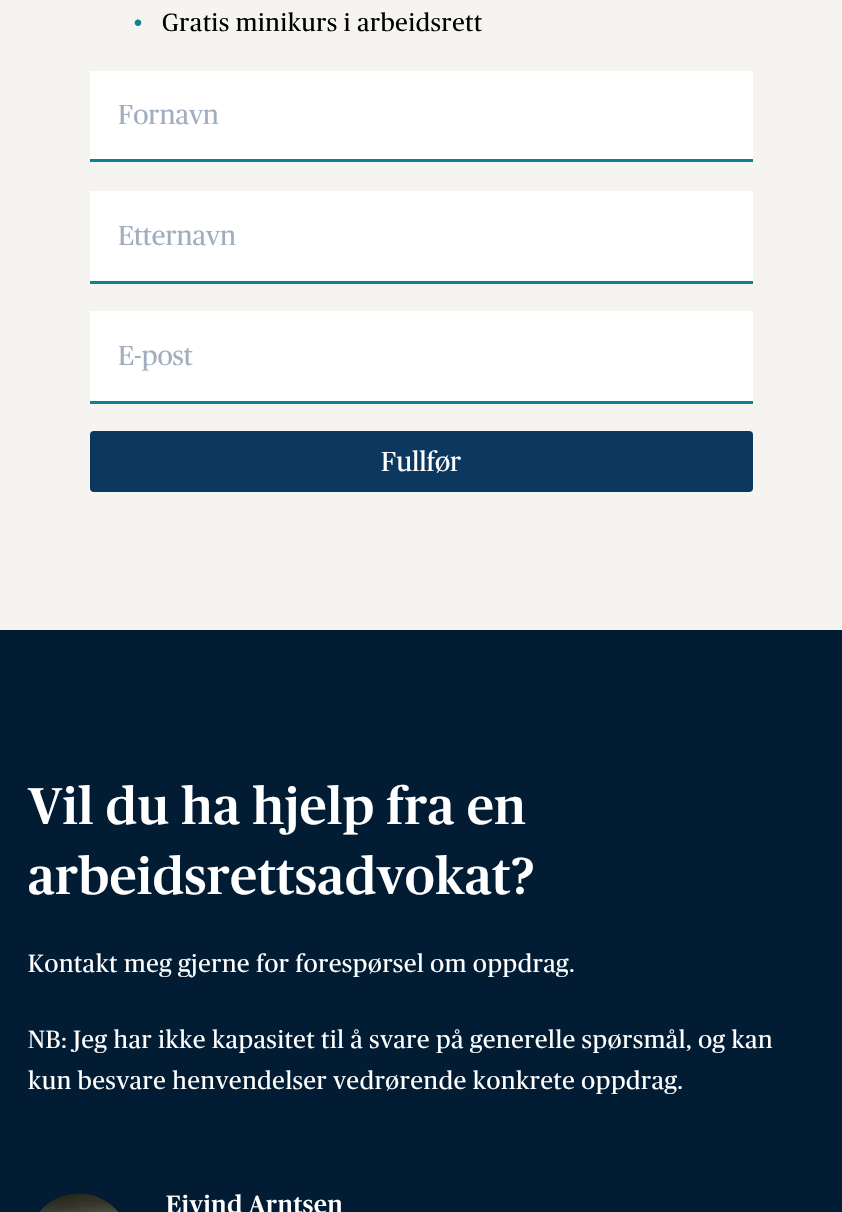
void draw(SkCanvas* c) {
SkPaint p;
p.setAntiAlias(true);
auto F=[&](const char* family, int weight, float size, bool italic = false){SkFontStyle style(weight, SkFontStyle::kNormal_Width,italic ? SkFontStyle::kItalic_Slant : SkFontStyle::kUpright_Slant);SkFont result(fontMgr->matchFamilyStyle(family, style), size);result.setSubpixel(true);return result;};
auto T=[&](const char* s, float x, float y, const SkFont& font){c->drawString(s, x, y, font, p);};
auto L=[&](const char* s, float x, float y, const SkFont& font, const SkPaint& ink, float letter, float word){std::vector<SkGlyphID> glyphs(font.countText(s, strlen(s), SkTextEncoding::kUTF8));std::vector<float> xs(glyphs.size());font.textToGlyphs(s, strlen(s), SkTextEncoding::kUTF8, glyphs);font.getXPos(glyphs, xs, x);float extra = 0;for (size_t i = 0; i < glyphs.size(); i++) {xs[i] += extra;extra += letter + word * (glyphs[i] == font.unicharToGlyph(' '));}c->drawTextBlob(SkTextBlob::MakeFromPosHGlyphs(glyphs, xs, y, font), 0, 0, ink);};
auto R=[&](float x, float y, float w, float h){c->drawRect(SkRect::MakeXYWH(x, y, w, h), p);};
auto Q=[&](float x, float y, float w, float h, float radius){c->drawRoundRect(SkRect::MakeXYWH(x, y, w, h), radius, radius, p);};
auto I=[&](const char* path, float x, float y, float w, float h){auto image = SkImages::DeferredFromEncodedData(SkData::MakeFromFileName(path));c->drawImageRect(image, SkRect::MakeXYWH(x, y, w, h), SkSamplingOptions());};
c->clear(0xfff6f4f0);
auto f1 = F("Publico",700,24.85);
p.setColor(0xff108193);
L("•",134,31,f1,p,.7,0);
auto f2 = F("Publico",400,24.85);
p.setColor(0xff000000);
L("Gratis minikurs i arbeidsrett",162,31,f2,p,.7,0);
p.setColor(0xffffffff);
R(90,71,663,88);
p.setColor(0xff108193);
R(90,159,663,3);
c->save();
c->clipRect(SkRect::MakeXYWH(119,96,606,36));
auto f3 = F("Publico",400,27.5);
p.setColor(0xffa0aec0);
T("Fornavn",118,124,f3);
c->restore();
p.setColor(0xffffffff);
R(90,191,663,90);
p.setColor(0xff108193);
R(90,281,663,3);
c->save();
c->clipRect(SkRect::MakeXYWH(119,216,606,36));
p.setColor(0xffa0aec0);
T("Etternavn",118,245,f3);
c->restore();
p.setColor(0xffffffff);
R(90,311,663,90);
p.setColor(0xff108193);
R(90,401,663,3);
c->save();
c->clipRect(SkRect::MakeXYWH(119,336,606,36));
p.setColor(0xffa0aec0);
T("E-post",118,365,f3);
c->restore();
p.setColor(0xff0c375f);
Q(90,431,663,61,4);
p.setColor(0xffffffff);
T("Fullfør",381,471,f3);
p.setColor(0xff021c34);
R(0,630,842,582);
auto f4 = F("Publico",500,51.75);
p.setColor(0xffffffff);
L("Vil du ha hjelp fra en",28,824,f4,p,.7,0);
L("arbeidsrettsadvokat?",28,894,f4,p,.7,0);
L("Kontakt meg gjerne for forespørsel om oppdrag.",28,972,f2,p,.7,0);
L("NB: Jeg har ikke kapasitet til å svare på generelle spørsmål, og kan",28,1048,f2,p,.7,0);
L("kun besvare henvendelser vedrørende konkrete oppdrag.",28,1089,f2,p,.7,0);
I("1.png",39,1193,79,19);
auto f5 = F("Publico",500,24.85);
L("Eivind Arntsen",166,1213,f5,p,.7,0);
}
